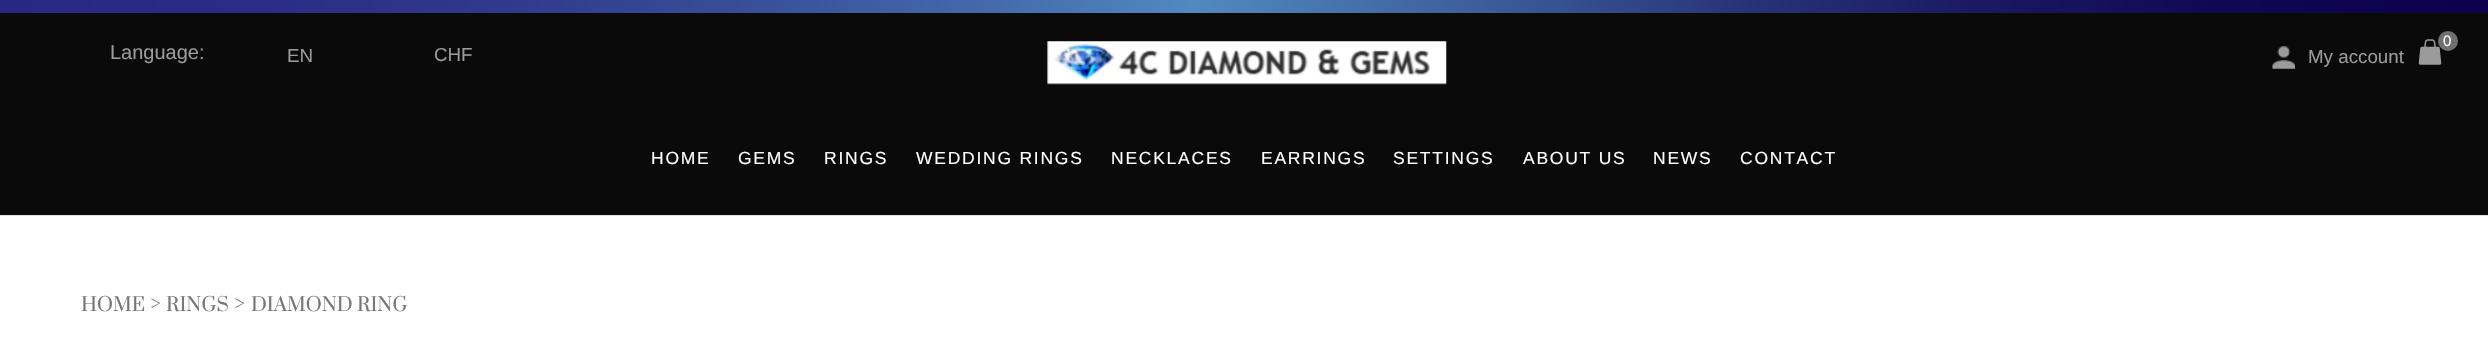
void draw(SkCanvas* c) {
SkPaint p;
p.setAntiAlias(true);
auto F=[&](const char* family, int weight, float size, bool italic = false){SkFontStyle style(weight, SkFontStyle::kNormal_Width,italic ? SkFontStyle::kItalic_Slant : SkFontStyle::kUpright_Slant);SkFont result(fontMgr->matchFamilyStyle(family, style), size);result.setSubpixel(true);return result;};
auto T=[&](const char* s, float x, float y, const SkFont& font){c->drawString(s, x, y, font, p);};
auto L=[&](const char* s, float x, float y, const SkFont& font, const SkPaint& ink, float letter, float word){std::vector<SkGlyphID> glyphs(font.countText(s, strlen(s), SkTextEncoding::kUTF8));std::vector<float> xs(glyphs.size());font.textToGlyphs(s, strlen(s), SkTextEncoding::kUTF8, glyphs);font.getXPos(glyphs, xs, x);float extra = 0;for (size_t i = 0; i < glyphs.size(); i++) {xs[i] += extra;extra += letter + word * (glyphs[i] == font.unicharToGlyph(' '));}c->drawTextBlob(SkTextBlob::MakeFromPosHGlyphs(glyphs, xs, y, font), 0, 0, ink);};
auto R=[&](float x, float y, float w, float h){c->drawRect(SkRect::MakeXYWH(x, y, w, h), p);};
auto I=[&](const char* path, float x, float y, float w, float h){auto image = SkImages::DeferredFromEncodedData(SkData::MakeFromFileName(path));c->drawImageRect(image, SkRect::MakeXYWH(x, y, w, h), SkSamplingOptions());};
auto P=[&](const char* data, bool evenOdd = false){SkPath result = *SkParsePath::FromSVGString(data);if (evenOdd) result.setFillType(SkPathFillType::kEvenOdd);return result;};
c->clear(0xffffffff);
p.setColor(0xffe6e6e6);
c->drawPath(P("M0 215v1h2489v-215v214z"),p);
p.setColor(0xff0a0a0a);
R(0,13,2488,202);
{
const SkColor colors[] = {0xff282882,0xff2a2c85,0xff2f398d,0xff384e9a,0xff446bac,0xff5189bf,0xff3b5c99,0xff273478,0xff191860,0xff100651,0xff0d004c};
const float stops[] = {0,.1,.2,.3,.4,.48,.6,.7,.8,.9,1};
const SkPoint ends[] = {{0,6.3}, {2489,6.2}};
p.setShader(SkGradientShader::MakeLinear(ends, colors, stops, 11, SkTileMode::kClamp));
p.setAlpha(255);
}
R(0,0,2488,13);
auto f1 = F("Liberation Sans",400,20);
p.setShader(nullptr);
p.setColor(0xff9b9b9b);
T("Language:",110,59,f1);
auto f2 = F("Liberation Sans",400,18.75);
T("EN",287,62,f2);
T("CHF",434,61,f2);
I("1.png",1047,41,400,44);
I("2.png",2418,39,24,26);
p.setColor(0xff707070);
c->drawCircle(2448,41,10,p);
auto f3 = F("Liberation Sans",400,15);
p.setColor(0xffffffff);
T("0",2443,46,f3);
I("3.png",2272,46,23,23);
p.setColor(0xff9b9b9b);
T("My account",2308,63,f2);
auto f4 = F("Liberation Sans",400,17.5);
p.setColor(0xffffffff);
L("HOME",651,164,f4,p,1.75,0);
L("GEMS",738,164,f4,p,1.75,0);
L("RINGS",824,164,f4,p,1.75,0);
L("WEDDING RINGS",916,164,f4,p,1.75,0);
L("NECKLACES",1111,164,f4,p,1.75,0);
L("EARRINGS",1261,164,f4,p,1.75,0);
L("SETTINGS",1393,164,f4,p,1.75,0);
L("ABOUT US",1523,164,f4,p,1.75,0);
L("NEWS",1653,164,f4,p,1.75,0);
L("CONTACT",1740,164,f4,p,1.75,0);
auto f5 = F("Prata",400,18.5);
p.setColor(0xff767676);
T("HOME",81,311,f5);
auto f6 = F("Prata",400,22);
T(">",150,311,f6);
T("RINGS",166,311,f5);
T(">",234,311,f6);
T("DIAMOND RING",251,311,f5);
}
